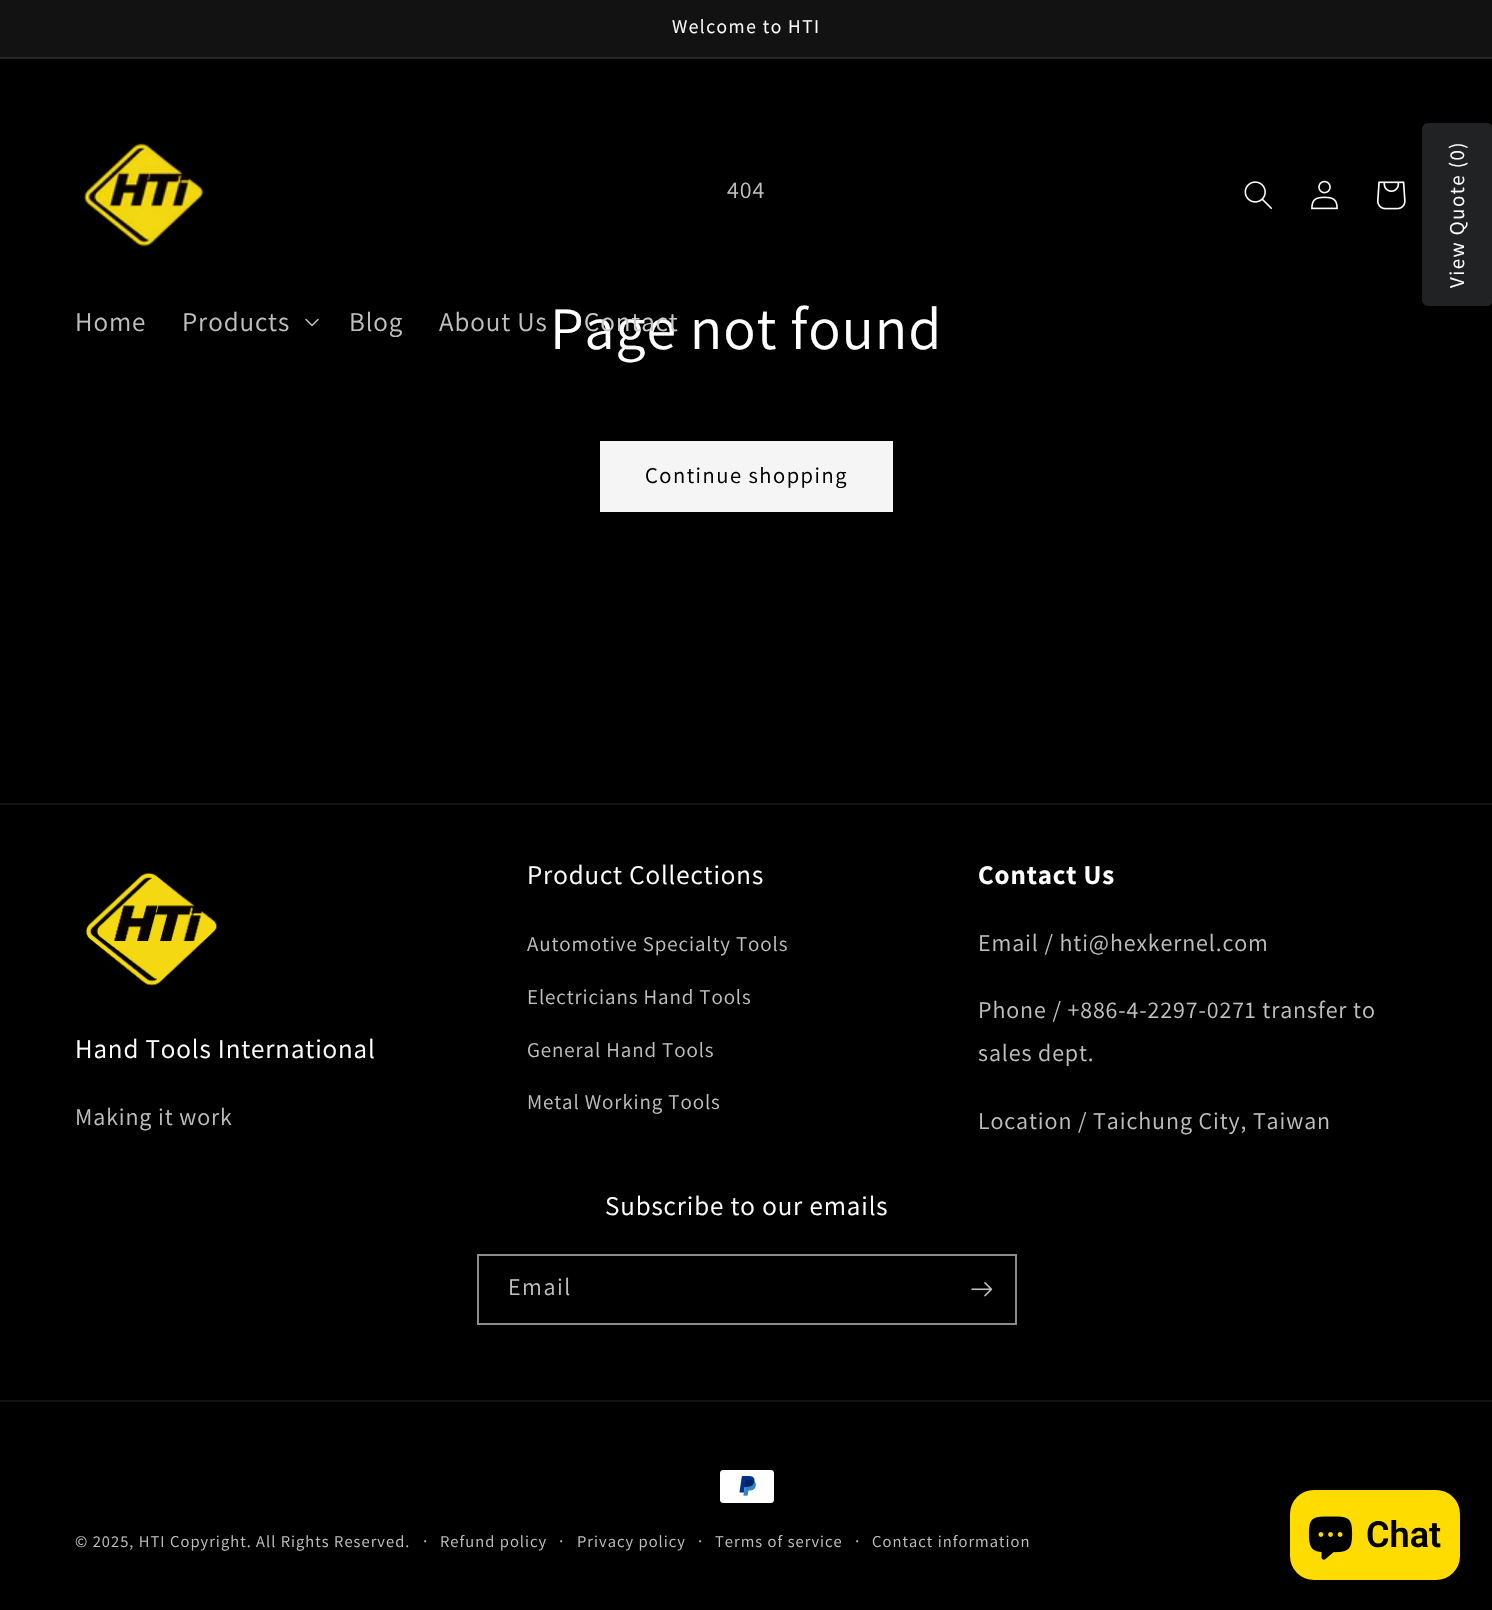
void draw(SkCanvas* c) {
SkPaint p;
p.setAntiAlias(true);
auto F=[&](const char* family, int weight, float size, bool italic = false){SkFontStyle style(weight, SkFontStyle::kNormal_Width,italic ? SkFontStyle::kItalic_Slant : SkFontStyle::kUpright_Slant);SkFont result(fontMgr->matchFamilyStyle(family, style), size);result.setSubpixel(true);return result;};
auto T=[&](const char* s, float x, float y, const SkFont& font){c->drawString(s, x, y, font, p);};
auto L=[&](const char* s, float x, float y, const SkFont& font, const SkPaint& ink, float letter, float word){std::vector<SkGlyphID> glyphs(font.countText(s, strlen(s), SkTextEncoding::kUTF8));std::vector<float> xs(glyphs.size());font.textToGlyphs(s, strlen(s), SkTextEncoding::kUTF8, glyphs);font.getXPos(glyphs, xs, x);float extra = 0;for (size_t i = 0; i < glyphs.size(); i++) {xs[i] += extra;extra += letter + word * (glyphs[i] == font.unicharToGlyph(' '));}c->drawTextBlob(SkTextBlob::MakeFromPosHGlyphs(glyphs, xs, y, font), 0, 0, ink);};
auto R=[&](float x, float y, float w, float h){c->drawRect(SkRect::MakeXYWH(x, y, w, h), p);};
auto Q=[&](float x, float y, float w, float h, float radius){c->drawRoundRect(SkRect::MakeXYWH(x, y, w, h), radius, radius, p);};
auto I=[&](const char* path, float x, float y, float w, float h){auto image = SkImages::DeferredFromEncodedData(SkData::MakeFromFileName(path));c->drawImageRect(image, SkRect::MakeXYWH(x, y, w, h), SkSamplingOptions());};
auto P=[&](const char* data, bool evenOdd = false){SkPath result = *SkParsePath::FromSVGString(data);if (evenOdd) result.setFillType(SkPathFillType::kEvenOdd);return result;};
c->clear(0xff000000);
p.setColor(0xff121212);
R(0,0,1492,57);
p.setColor(0xff252525);
R(0,57,1492,2);
auto f1 = F("Assistant",400,19.5);
p.setColor(0xffffffff);
L("Welcome to HTI",672,33,f1,p,1.5,0);
I("1.png",83,143,120,104);
I("2.png",1244,181,28,28);
I("3.png",1311,180,27,30);
I("4.png",1377,181,29,29);
auto f2 = F("Assistant",400,27);
p.setColor(0xffbfbfbf);
L("Home",75,331,f2,p,.9,0);
L("Products",182,331,f2,p,.9,0);
I("5.png",305,318,14,9);
L("Blog",349,331,f2,p,.9,0);
L("About Us",439,331,f2,p,.9,0);
auto f3 = F("Assistant",400,60);
p.setColor(0xffffffff);
L("Page not found",550,349,f3,p,.9,0);
p.setColor(0xffcbcbcb);
L("Contact",584,331,f2,p,.9,0);
auto f4 = F("Assistant",400,24);
p.setColor(0xffbfbfbf);
L("404",727,198,f4,p,.9,0);
p.setColor(0xfff5f5f5);
R(600,441,293,71);
auto f5 = F("Assistant",400,22.5);
p.setColor(0xff000000);
L("Continue shopping",645,483,f5,p,1.5,0);
p.setColor(0xff202223);
c->drawPath(P("M1422 300v-171c0-3 3-6 6-6h59c3 0 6 3 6 6v171c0 3-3 6-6 6h-59c-3 0-6-3-6-6z"),p);
auto f6 = F("Assistant",400,21);
p.setColor(0xffffffff);
c->save();
c->rotate(-90,1464,288);
L("View Quote (0)",1464,288,f6,p,1.5,0);
c->restore();
p.setColor(0xff141414);
R(0,803,1492,2);
I("6.png",85,872,132,114);
p.setColor(0xffffffff);
L("Hand Tools International",75,1058,f2,p,.9,0);
p.setColor(0xffbfbfbf);
L("Making it work",75,1125,f4,p,.9,0);
p.setColor(0xffffffff);
L("Product Collections",527,884,f2,p,.9,0);
p.setColor(0xffbfbfbf);
L("Automotive Specialty Tools",527,951,f6,p,.9,0);
L("Electricians Hand Tools",527,1004,f6,p,.9,0);
L("General Hand Tools",527,1057,f6,p,.9,0);
L("Metal Working Tools",527,1109,f6,p,.9,0);
auto f7 = F("Assistant",700,27);
p.setColor(0xffffffff);
L("Contact Us",978,884,f7,p,.9,0);
p.setColor(0xffbfbfbf);
L("Email / hti@hexkernel.com",978,951,f4,p,.9,0);
L("Phone / +886-4-2297-0271 transfer to",978,1018,f4,p,.9,0);
L("sales dept.",978,1061,f4,p,.9,0);
L("Location / Taichung City, Taiwan",978,1129,f4,p,.9,0);
p.setColor(0xffffffff);
L("Subscribe to our emails",605,1215,f2,p,.9,0);
p.setStroke(true);
p.setStrokeWidth(2);
p.setColor(0xff8c8c8c);
c->drawRect(SkRect::MakeXYWH(478,1255,538,69),p);
p.setStroke(false);
p.setColor(0xffbfbfbf);
L("Email",508,1295,f4,p,1.5,0);
I("7.png",971,1282,22,15);
p.setColor(0xff141414);
R(0,1400,1492,2);
I("8.png",720,1470,54,33);
auto f8 = F("Assistant",400,16.5);
p.setColor(0xffbfbfbf);
L("© 2025, HTI",75,1547,f8,p,1.05,0);
L("Copyright. All Rights Reserved.",170,1547,f8,p,1.05,0);
auto f9 = F("Assistant",400,18);
L("·",423,1547,f9,p,1.05,0);
L("Refund policy",440,1547,f8,p,1.05,0);
L("·",559,1547,f9,p,1.05,0);
L("Privacy policy",577,1547,f8,p,1.05,0);
L("·",698,1547,f9,p,1.05,0);
L("Terms of service",715,1547,f8,p,1.05,0);
L("·",855,1547,f9,p,1.05,0);
L("Contact information",872,1547,f8,p,1.05,0);
p.setColor(0xffffdc00);
Q(1290,1490,170,90,24);
I("9.png",1308,1516,45,44);
auto f10 = F("Roboto",600,36);
p.setColor(0xff000000);
T("Chat",1366,1547,f10);
}
